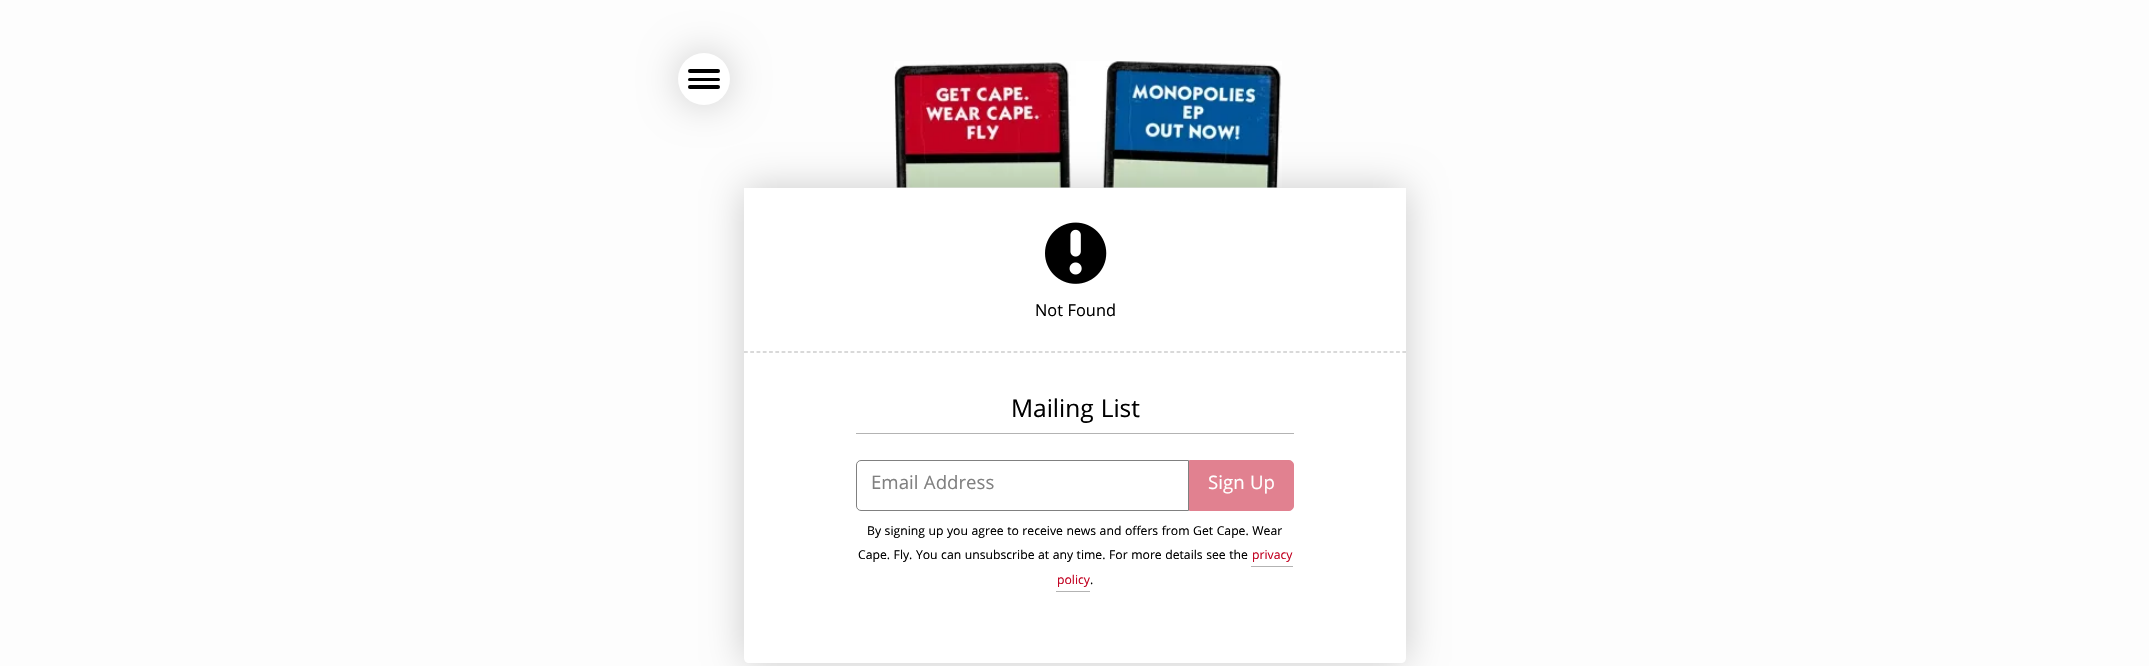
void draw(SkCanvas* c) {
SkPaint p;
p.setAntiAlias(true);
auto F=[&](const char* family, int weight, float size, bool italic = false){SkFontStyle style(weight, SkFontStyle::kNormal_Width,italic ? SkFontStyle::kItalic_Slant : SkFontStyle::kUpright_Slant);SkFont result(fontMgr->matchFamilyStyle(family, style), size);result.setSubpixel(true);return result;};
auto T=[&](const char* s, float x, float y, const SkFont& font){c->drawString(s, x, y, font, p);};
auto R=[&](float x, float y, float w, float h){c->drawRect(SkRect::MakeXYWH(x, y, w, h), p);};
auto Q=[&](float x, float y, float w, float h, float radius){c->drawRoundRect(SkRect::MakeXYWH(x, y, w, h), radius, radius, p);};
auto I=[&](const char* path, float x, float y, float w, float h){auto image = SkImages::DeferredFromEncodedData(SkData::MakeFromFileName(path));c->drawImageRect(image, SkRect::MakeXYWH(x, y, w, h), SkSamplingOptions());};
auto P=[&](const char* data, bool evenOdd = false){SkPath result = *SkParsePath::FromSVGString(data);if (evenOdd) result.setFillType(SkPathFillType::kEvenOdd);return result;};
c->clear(0xfffdfdfd);
p.setColor(0x33000000);
p.setMaskFilter(SkMaskFilter::MakeBlur(kNormal_SkBlurStyle, 19));
c->drawRoundRect(SkRect::MakeXYWH(678,53,52,52),26,26,p);
p.setMaskFilter(nullptr);
p.setColor(0xffffffff);
c->drawCircle(704,79,26,p);
p.setColor(0xff000000);
Q(688,69,32,4,2);
Q(688,78,32,3,1.5);
Q(688,85,32,4,2);
I("1.png",894,61,388,127);
p.setColor(0x33000000);
p.setMaskFilter(SkMaskFilter::MakeBlur(kNormal_SkBlurStyle, 19));
c->drawRoundRect(SkRect::MakeXYWH(744,188,662,475),5,5,p);
p.setMaskFilter(nullptr);
p.setColor(0xffffffff);
c->drawPath(P("M744 188h662v470c0 3-2 5-5 5h-652c-3 0-5-2-5-5z"),p);
I("2.png",1045,222,62,62);
auto f1 = F("Khula",400,17.5);
p.setColor(0xff000000);
T("Not Found",1035,316,f1);
p.setStroke(true);
p.setStrokeWidth(1.2);
p.setColor(0xffb3b3b3);
p.setPathEffect(SkDashPathEffect::Make({{3.75f,2.52f}}, 0));
c->drawPath(P("M744 352h662"),p);
p.setPathEffect(nullptr);
p.setStroke(false);
R(856,433,438,1);
auto f2 = F("Khula",400,26.25);
p.setColor(0xff000000);
T("Mailing List",1011,417,f2);
p.setStroke(true);
p.setStrokeWidth(1);
p.setColor(0xff808080);
c->drawPath(P("M861 460.5h327.5v50h-327.5c-2.5 0-4.5-2-4.5-4.5v-41c0-2.5 2-4.5 4.5-4.5z"),p);
c->save();
c->clipRect(SkRect::MakeXYWH(871,475,333,20));
auto f3 = F("Khula",400,20);
p.setStroke(false);
T("Email Address",871,489,f3);
c->restore();
p.setColor(0xffe18190);
c->drawPath(P("M1189.5 460.5h99.5c2.5 0 4.5 2 4.5 4.5v41c0 2.5-2 4.5-4.5 4.5h-99.5z"),p);
p.setStroke(true);
c->drawPath(P("M1189.5 460.5h99.5c2.5 0 4.5 2 4.5 4.5v41c0 2.5-2 4.5-4.5 4.5h-99.5z"),p);
p.setStroke(false);
p.setColor(0xffffffff);
T("Sign Up",1208,489,f3);
auto f4 = F("Khula",400,13.1);
p.setColor(0xff000000);
T("By signing up you agree to receive news and offers from Get Cape. Wear",867,535,f4);
T("Cape. Fly. You can unsubscribe at any time. For more details see the",858,559,f4);
p.setColor(0xffc20221);
T("privacy",1252,559,f4);
p.setColor(0xffb3b3b3);
R(1251,566,42,1);
p.setColor(0xffc20221);
T("policy",1057,584,f4);
p.setColor(0xffb3b3b3);
R(1056,591,34,1);
p.setColor(0xff000000);
T(".",1090,584,f4);
}
